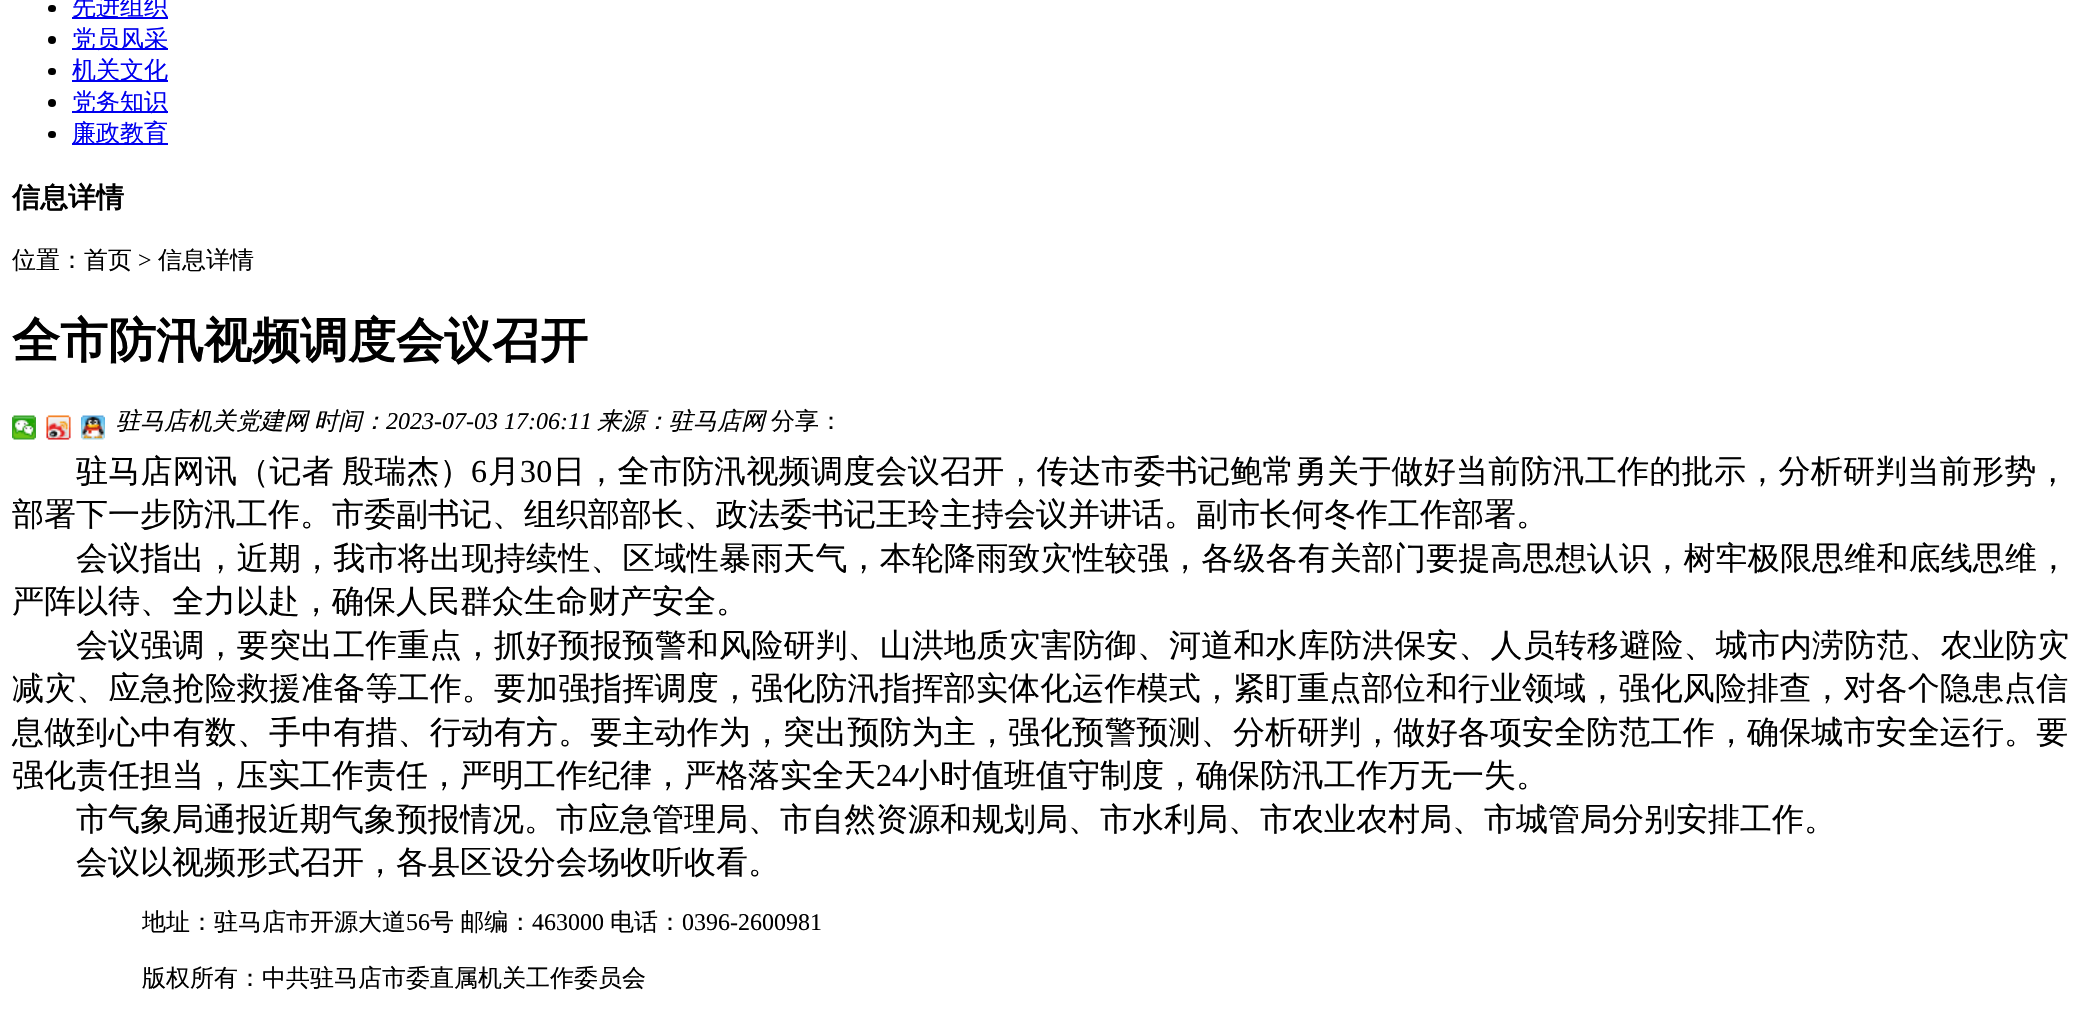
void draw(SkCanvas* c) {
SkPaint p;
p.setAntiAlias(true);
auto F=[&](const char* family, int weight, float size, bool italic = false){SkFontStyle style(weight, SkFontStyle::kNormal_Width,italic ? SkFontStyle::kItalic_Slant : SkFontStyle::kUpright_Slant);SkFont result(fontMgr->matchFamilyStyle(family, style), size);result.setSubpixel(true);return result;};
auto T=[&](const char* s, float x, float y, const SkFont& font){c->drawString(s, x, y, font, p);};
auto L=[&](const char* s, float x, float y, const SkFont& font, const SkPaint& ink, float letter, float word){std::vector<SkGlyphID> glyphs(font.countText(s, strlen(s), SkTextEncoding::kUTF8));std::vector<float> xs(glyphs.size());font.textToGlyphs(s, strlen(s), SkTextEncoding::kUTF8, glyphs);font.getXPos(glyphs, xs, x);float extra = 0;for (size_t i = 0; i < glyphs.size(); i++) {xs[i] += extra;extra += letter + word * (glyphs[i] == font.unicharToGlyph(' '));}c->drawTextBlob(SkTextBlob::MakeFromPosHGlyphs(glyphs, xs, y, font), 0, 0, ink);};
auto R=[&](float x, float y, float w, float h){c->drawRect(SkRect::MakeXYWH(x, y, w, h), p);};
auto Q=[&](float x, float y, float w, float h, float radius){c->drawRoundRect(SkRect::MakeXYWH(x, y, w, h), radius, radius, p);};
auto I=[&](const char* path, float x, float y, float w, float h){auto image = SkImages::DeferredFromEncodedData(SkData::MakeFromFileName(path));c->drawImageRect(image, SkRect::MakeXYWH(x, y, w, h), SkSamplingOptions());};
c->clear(0xffffffff);
p.setColor(0xff000000);
Q(48,5,8,7,3.5);
p.setColor(0xff0000ee);
R(72,17,96,2);
auto f1 = F("WenQuanYi Zen Hei",500,24);
T("先进组织",72,15,f1);
p.setColor(0xff000000);
c->drawCircle(52,40,4,p);
p.setColor(0xff0000ee);
R(72,48,96,2);
T("党员风采",72,47,f1);
p.setColor(0xff000000);
Q(48,68,8,7,3.5);
p.setColor(0xff0000ee);
R(72,80,96,2);
T("机关文化",72,78,f1);
p.setColor(0xff000000);
c->drawCircle(52,103,4,p);
p.setColor(0xff0000ee);
R(72,111,96,2);
T("党务知识",72,110,f1);
p.setColor(0xff000000);
Q(48,131,8,7,3.5);
p.setColor(0xff0000ee);
R(72,143,96,2);
T("廉政教育",72,141,f1);
auto f2 = F("WenQuanYi Zen Hei",700,28);
p.setColor(0xff000000);
T("信息详情",12,207,f2);
T("位置：首页",12,268,f1);
auto f3 = F("Liberation Serif",400,24);
T(">",138,268,f3);
T("信息详情",158,268,f1);
auto f4 = F("WenQuanYi Zen Hei",700,48);
T("全市防汛视频调度会议召开",12,357,f4);
auto f5 = F("WenQuanYi Zen Hei",500,24,true);
T("驻马店机关党建网",116,429,f5);
T("时间：",314,429,f5);
auto f6 = F("Liberation Serif",400,24,true);
T("2023-07-03 17:06:11",386,429,f6);
T("来源：驻马店网",597,429,f5);
I("1.png",12,415,24,25);
I("2.png",46,415,25,25);
I("3.png",81,415,24,25);
T("分享：",771,429,f1);
auto f7 = F("WenQuanYi Zen Hei",500,32);
L("驻马店网讯（记者",76,482,f7,p,.25,0);
L("殷瑞杰）",342,482,f7,p,.5,0);
auto f8 = F("Liberation Serif",400,32);
L("6",471,482,f8,p,.25,0);
L("月",488,482,f7,p,.25,0);
L("30",520,482,f8,p,.25,0);
L("日，全市防汛视频调度会议召开，传达市委书记鲍常勇关于做好当前防汛工作的批示，分析研判当前形势，",553,482,f7,p,.25,0);
T("部署下一步防汛工作。市委副书记、组织部部长、政法委书记王玲主持会议并讲话。副市长何冬作工作部署。",12,525,f7);
L("会议指出，近期，我市将出现持续性、区域性暴雨天气，本轮降雨致灾性较强，各级各有关部门要提高思想认识，树牢极限思维和底线思维，",76,569,f7,p,.15,0);
T("严阵以待、全力以赴，确保人民群众生命财产安全。",12,612,f7);
L("会议强调，要突出工作重点，抓好预报预警和风险研判、山洪地质灾害防御、河道和水库防洪保安、人员转移避险、城市内涝防范、农业防灾",76,656,f7,p,.15,0);
L("减灾、应急抢险救援准备等工作。要加强指挥调度，强化防汛指挥部实体化运作模式，紧盯重点部位和行业领域，强化风险排查，对各个隐患点信",12,699,f7,p,.13,0);
L("息做到心中有数、手中有措、行动有方。要主动作为，突出预防为主，强化预警预测、分析研判，做好各项安全防范工作，确保城市安全运行。要",12,743,f7,p,.13,0);
T("强化责任担当，压实工作责任，严明工作纪律，严格落实全天",12,786,f7);
T("24",876,786,f8);
T("小时值班值守制度，确保防汛工作万无一失。",908,786,f7);
T("市气象局通报近期气象预报情况。市应急管理局、市自然资源和规划局、市水利局、市农业农村局、市城管局分别安排工作。",76,830,f7);
T("会议以视频形式召开，各县区设分会场收听收看。",76,873,f7);
T("地址：驻马店市开源大道",142,930,f1);
T("56",406,930,f3);
L("号 邮编：",430,930,f1,p,0,-1);
T("463000",532,930,f3);
T("电话：",610,930,f1);
T("0396-2600981",682,930,f3);
T("版权所有：中共驻马店市委直属机关工作委员会",142,986,f1);
}
